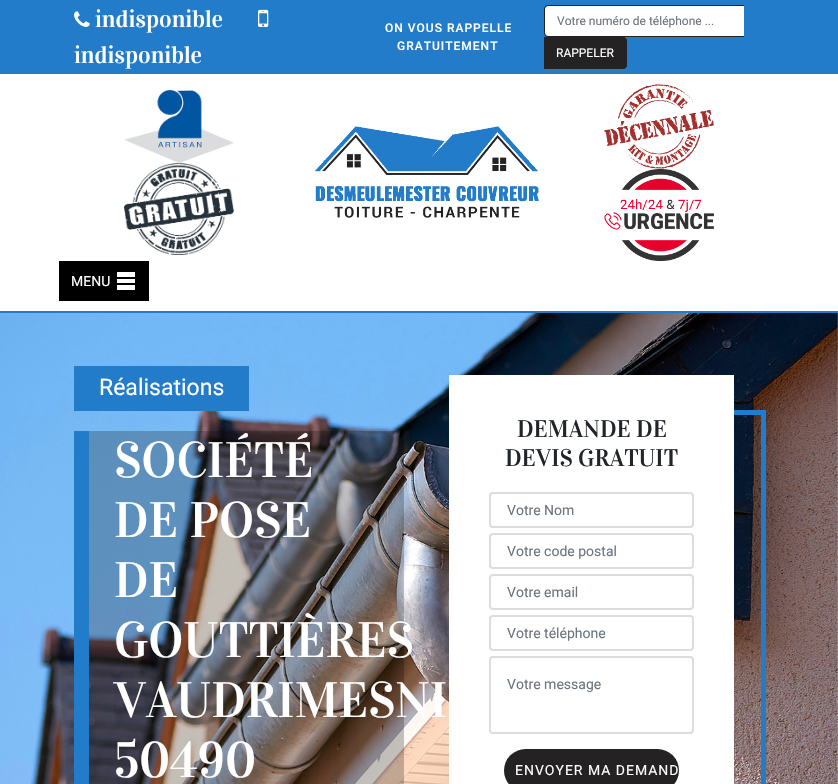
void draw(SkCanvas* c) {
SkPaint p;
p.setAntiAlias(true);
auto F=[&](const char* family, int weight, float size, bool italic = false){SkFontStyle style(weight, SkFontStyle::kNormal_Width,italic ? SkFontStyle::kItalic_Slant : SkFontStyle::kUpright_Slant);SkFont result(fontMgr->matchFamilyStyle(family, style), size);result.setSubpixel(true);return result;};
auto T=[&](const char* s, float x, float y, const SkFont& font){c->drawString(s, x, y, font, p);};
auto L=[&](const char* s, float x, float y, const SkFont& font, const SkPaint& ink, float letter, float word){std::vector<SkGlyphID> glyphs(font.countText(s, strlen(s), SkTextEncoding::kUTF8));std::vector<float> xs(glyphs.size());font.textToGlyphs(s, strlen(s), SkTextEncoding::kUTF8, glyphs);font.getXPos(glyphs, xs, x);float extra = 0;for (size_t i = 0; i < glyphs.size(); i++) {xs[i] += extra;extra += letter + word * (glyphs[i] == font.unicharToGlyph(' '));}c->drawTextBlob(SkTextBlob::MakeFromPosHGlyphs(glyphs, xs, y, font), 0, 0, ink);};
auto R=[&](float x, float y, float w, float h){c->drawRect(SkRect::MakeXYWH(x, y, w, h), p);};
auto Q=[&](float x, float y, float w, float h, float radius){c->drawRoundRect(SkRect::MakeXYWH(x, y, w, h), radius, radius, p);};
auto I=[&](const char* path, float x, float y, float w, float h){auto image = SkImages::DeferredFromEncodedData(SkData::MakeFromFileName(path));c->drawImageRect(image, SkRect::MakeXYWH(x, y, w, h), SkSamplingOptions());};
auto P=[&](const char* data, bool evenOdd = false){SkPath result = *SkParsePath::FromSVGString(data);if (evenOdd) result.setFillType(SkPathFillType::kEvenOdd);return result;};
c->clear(0xffffffff);
p.setColor(0xff227cc9);
R(0,0,838,74);
I("1.png",74,11,16,16);
auto f1 = F("Vidaloka",400,24);
p.setColor(0xffffffff);
T("indisponible",95,27,f1);
I("2.png",258,9,11,18);
T("indisponible",74,63,f1);
auto f2 = F("Roboto",500,12);
L("ON VOUS RAPPELLE",385,32,f2,p,1,0);
L("GRATUITEMENT",397,50,f2,p,1,0);
c->drawPath(P("M548 6h196v30h-196c-1.5 0-3-1.5-3-3v-24c0-1.5 1.5-3 3-3z"),p);
p.setColor(0xff242223);
c->drawPath(P("M548 5h196v32h-196c-2 0-4-2-4-4v-24c0-2 2-4 4-4zm0 1h196v30h-196c-2 0-3-1-3-3v-24c0-2 1-3 3-3z",true),p);
auto f3 = F("Roboto",400,12);
p.setColor(0xff6c757d);
T("Votre numéro de téléphone ...",557,25,f3);
p.setColor(0xff242223);
c->drawPath(P("M544 37h79c2 0 4 2 4 4v24c0 2-2 4-4 4h-79z"),p);
c->drawPath(P("M544 37h79c2 0 4 2 4 4v24c0 2-2 4-4 4h-79zm0 1h79c2 0 3 1 3 3v24c0 2-1 3-3 3h-79z",true),p);
p.setColor(0xffffffff);
T("RAPPELER",556,57,f3);
I("3.png",124,90,110,73);
I("4.png",124,163,110,92);
I("5.png",315,126,224,92);
I("6.png",604,84,110,85);
I("7.png",604,169,110,92);
p.setColor(0xff000000);
R(59,261,90,40);
p.setColor(0xffffffff);
R(117,272,18,5);
R(117,279,18,4);
R(117,285,18,5);
auto f4 = F("Roboto",400,14);
T("MENU",71,286,f4);
p.setColor(0xff227cc9);
R(0,311,838,2);
I("8.png",0,313,838,471);
R(74,366,175,45);
auto f5 = F("Roboto",400,23);
p.setColor(0xffffffff);
T("Réalisations",99,395,f5);
p.setColor(0x3b000000);
R(89,431,315,353);
p.setColor(0xff227cc9);
R(74,431,15,353);
auto f6 = F("Vidaloka",400,50);
p.setColor(0xffffffff);
T("SOCIÉTÉ",114,477,f6);
T("DE POSE",114,537,f6);
T("DE",114,597,f6);
T("GOUTTIÈRES",114,657,f6);
T("VAUDRIMESNI",114,717,f6);
T("50490",114,777,f6);
p.setStroke(true);
p.setStrokeWidth(5);
p.setColor(0xff227cc9);
c->drawRect(SkRect::MakeXYWH(461.5,412.5,302,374),p);
p.setStroke(false);
p.setColor(0xffffffff);
R(449,375,285,409);
p.setColor(0xff212529);
T("DEMANDE DE",517,437,f1);
T("DEVIS GRATUIT",505,466,f1);
p.setStroke(true);
p.setStrokeWidth(2);
p.setColor(0xffdddddd);
c->drawRoundRect(SkRect::MakeXYWH(490,493,203,34),3,3,p);
p.setStroke(false);
p.setColor(0xff6c757d);
T("Votre Nom",507,515,f4);
p.setStroke(true);
p.setColor(0xffdddddd);
c->drawRoundRect(SkRect::MakeXYWH(490,534,203,34),3,3,p);
p.setStroke(false);
p.setColor(0xff6c757d);
T("Votre code postal",507,556,f4);
p.setStroke(true);
p.setColor(0xffdddddd);
c->drawRoundRect(SkRect::MakeXYWH(490,575,203,34),3,3,p);
p.setStroke(false);
p.setColor(0xff6c757d);
T("Votre email",507,597,f4);
p.setStroke(true);
p.setColor(0xffdddddd);
c->drawRoundRect(SkRect::MakeXYWH(490,616,203,34),3,3,p);
p.setStroke(false);
p.setColor(0xff6c757d);
T("Votre téléphone",507,638,f4);
p.setStroke(true);
p.setColor(0xffdddddd);
c->drawRoundRect(SkRect::MakeXYWH(490,657,203,76),3,3,p);
p.setStroke(false);
p.setColor(0xff6c757d);
T("Votre message",507,689,f4);
p.setColor(0xff242223);
Q(504,749,175,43,21.5);
c->save();
c->clipPath(P("M525.5 750h132c11.5 0 20.5 9 20.5 20.5c0 11.5-9 20.5-20.5 20.5h-132c-11.5 0-20.5-9-20.5-20.5c0-11.5 9-20.5 20.5-20.5z"),true);
p.setColor(0xffffffff);
L("ENVOYER MA DEMAND",515,775,f4,p,1,0);
c->restore();
}
